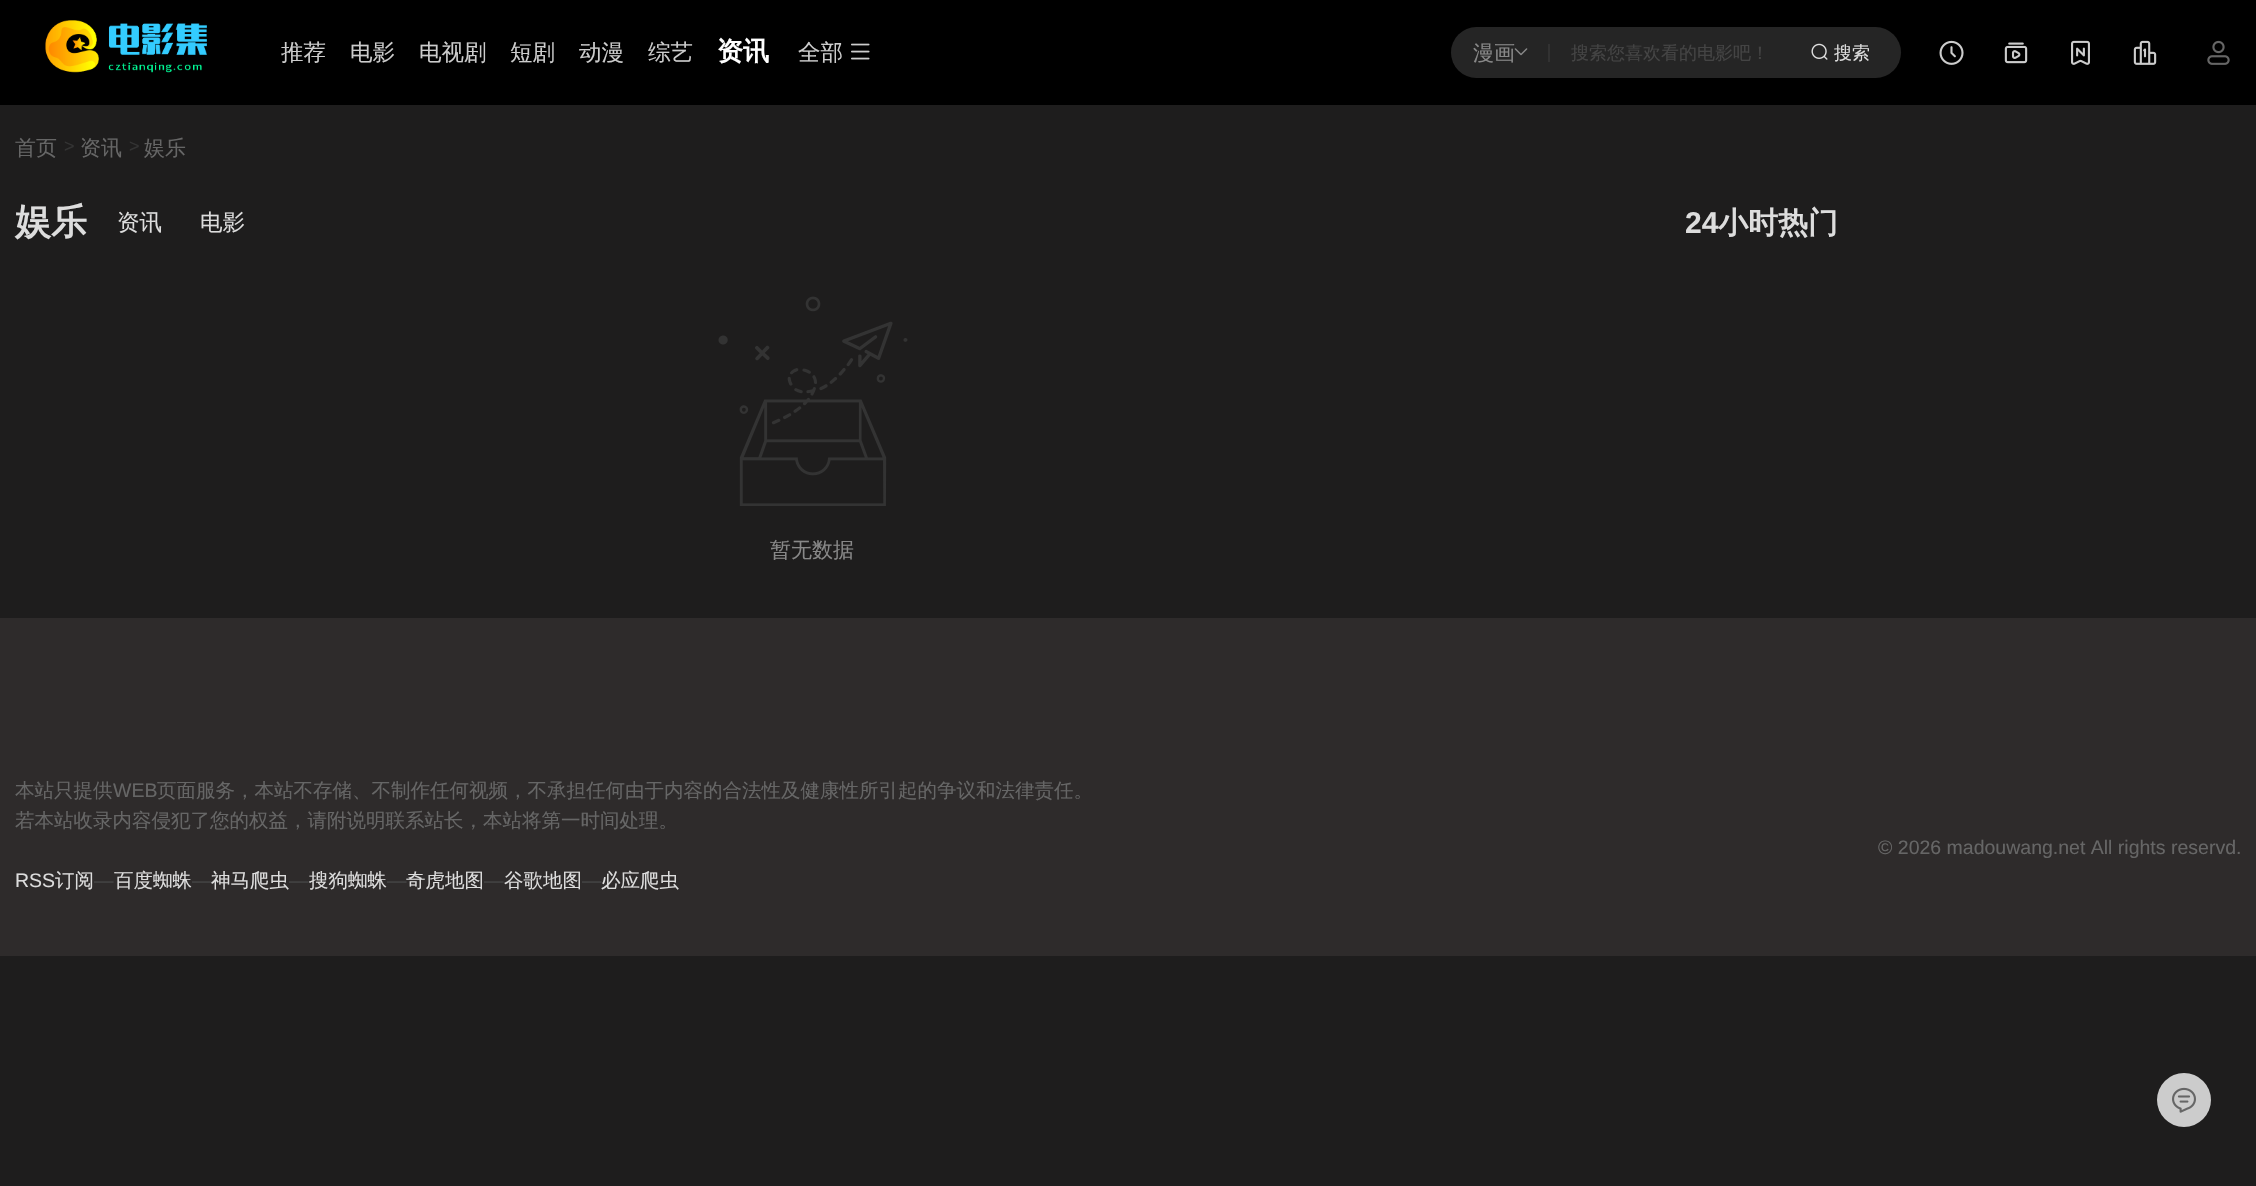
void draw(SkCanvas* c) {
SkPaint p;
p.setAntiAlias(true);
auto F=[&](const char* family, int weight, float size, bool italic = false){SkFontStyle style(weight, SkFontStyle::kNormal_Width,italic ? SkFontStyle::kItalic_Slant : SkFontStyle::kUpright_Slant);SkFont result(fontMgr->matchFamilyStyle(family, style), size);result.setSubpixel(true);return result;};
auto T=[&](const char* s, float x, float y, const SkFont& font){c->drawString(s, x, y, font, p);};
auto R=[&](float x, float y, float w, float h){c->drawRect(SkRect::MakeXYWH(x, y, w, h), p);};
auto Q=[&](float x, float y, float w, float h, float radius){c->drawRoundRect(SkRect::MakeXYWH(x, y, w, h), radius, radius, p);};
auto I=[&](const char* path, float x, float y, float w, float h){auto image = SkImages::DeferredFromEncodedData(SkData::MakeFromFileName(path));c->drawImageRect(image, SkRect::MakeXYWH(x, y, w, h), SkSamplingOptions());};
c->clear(0xff1e1d1d);
p.setColor(0xff000000);
R(0,0,2256,105);
I("1.png",45,20,162,53);
auto f1 = F("WenQuanYi Zen Hei",500,22.5);
p.setColor(0xffcccccc);
T("推荐",281,60,f1);
T("电影",350,60,f1);
T("电视剧",419,60,f1);
T("短剧",510,60,f1);
T("动漫",579,60,f1);
T("综艺",648,60,f1);
auto f2 = F("WenQuanYi Zen Hei",700,26);
p.setColor(0xffffffff);
T("资讯",717,60,f2);
p.setColor(0xffcccccc);
T("全部",798,60,f1);
I("2.png",851,43,19,17);
p.setColor(0xff252525);
Q(1451,27,450,51,25.5);
auto f3 = F("WenQuanYi Zen Hei",500,21);
p.setColor(0xff888888);
T("漫画",1473,60,f3);
I("3.png",1514,48,14,8);
p.setColor(0xff323232);
R(1548,44,2,18);
auto f4 = F("WenQuanYi Zen Hei",500,18);
p.setColor(0xff444444);
T("搜索您喜欢看的电影吧！",1571,59,f4);
I("4.png",1811,43,17,17);
p.setColor(0xffdddddd);
T("搜索",1834,59,f4);
I("5.png",1939,40,25,25);
I("6.png",2004,42,24,22);
I("7.png",2071,40,19,25);
I("8.png",2133,40,24,25);
I("9.png",2207,40,23,25);
p.setColor(0xff666666);
T("首页",15,155,f3);
auto f5 = F("Liberation Sans",400,18);
p.setColor(0xff333333);
T(">",64,152,f5);
p.setColor(0xff666666);
T("资讯",80,155,f3);
p.setColor(0xff333333);
T(">",129,152,f5);
p.setColor(0xff666666);
T("娱乐",144,155,f3);
auto f6 = F("WenQuanYi Zen Hei",700,36);
p.setColor(0xffdddddd);
T("娱乐",15,234,f6);
T("资讯",117,230,f1);
T("电影",200,230,f1);
I("10.png",718,296,190,210);
p.setColor(0xff888888);
T("暂无数据",770,557,f3);
auto f7 = F("Liberation Sans",700,30);
p.setColor(0xffdddddd);
T("24",1685,233,f7);
auto f8 = F("WenQuanYi Zen Hei",700,30);
T("小时热门",1718,233,f8);
p.setColor(0xff2e2b2b);
R(0,618,2256,338);
auto f9 = F("WenQuanYi Zen Hei",500,19.5);
p.setColor(0xff666666);
T("本站只提供",15,797,f9);
auto f10 = F("Liberation Sans",400,19.5);
T("WEB",113,797,f10);
T("页面服务，本站不存储、不制作任何视频，不承担任何由于内容的合法性及健康性所引起的争议和法律责任。",157,797,f9);
T("若本站收录内容侵犯了您的权益，请附说明联系站长，本站将第一时间处理。",15,827,f9);
p.setColor(0xffdddddd);
T("RSS",15,887,f10);
T("订阅",55,887,f9);
p.setColor(0xff444444);
T("—",94,887,f10);
p.setColor(0xffdddddd);
T("百度蜘蛛",114,887,f9);
p.setColor(0xff444444);
T("—",192,887,f10);
p.setColor(0xffdddddd);
T("神马爬虫",211,887,f9);
p.setColor(0xff444444);
T("—",289,887,f10);
p.setColor(0xffdddddd);
T("搜狗蜘蛛",309,887,f9);
p.setColor(0xff444444);
T("—",387,887,f10);
p.setColor(0xffdddddd);
T("奇虎地图",406,887,f9);
p.setColor(0xff444444);
T("—",484,887,f10);
p.setColor(0xffdddddd);
T("谷歌地图",504,887,f9);
p.setColor(0xff444444);
T("—",582,887,f10);
p.setColor(0xffdddddd);
T("必应爬虫",601,887,f9);
p.setColor(0xff666666);
T("© 2026 madouwang.net All rights reservd.",1878,854,f10);
p.setColor(0xffcccccc);
c->drawCircle(2184,1100,27,p);
I("11.png",2172,1087,24,26);
}
